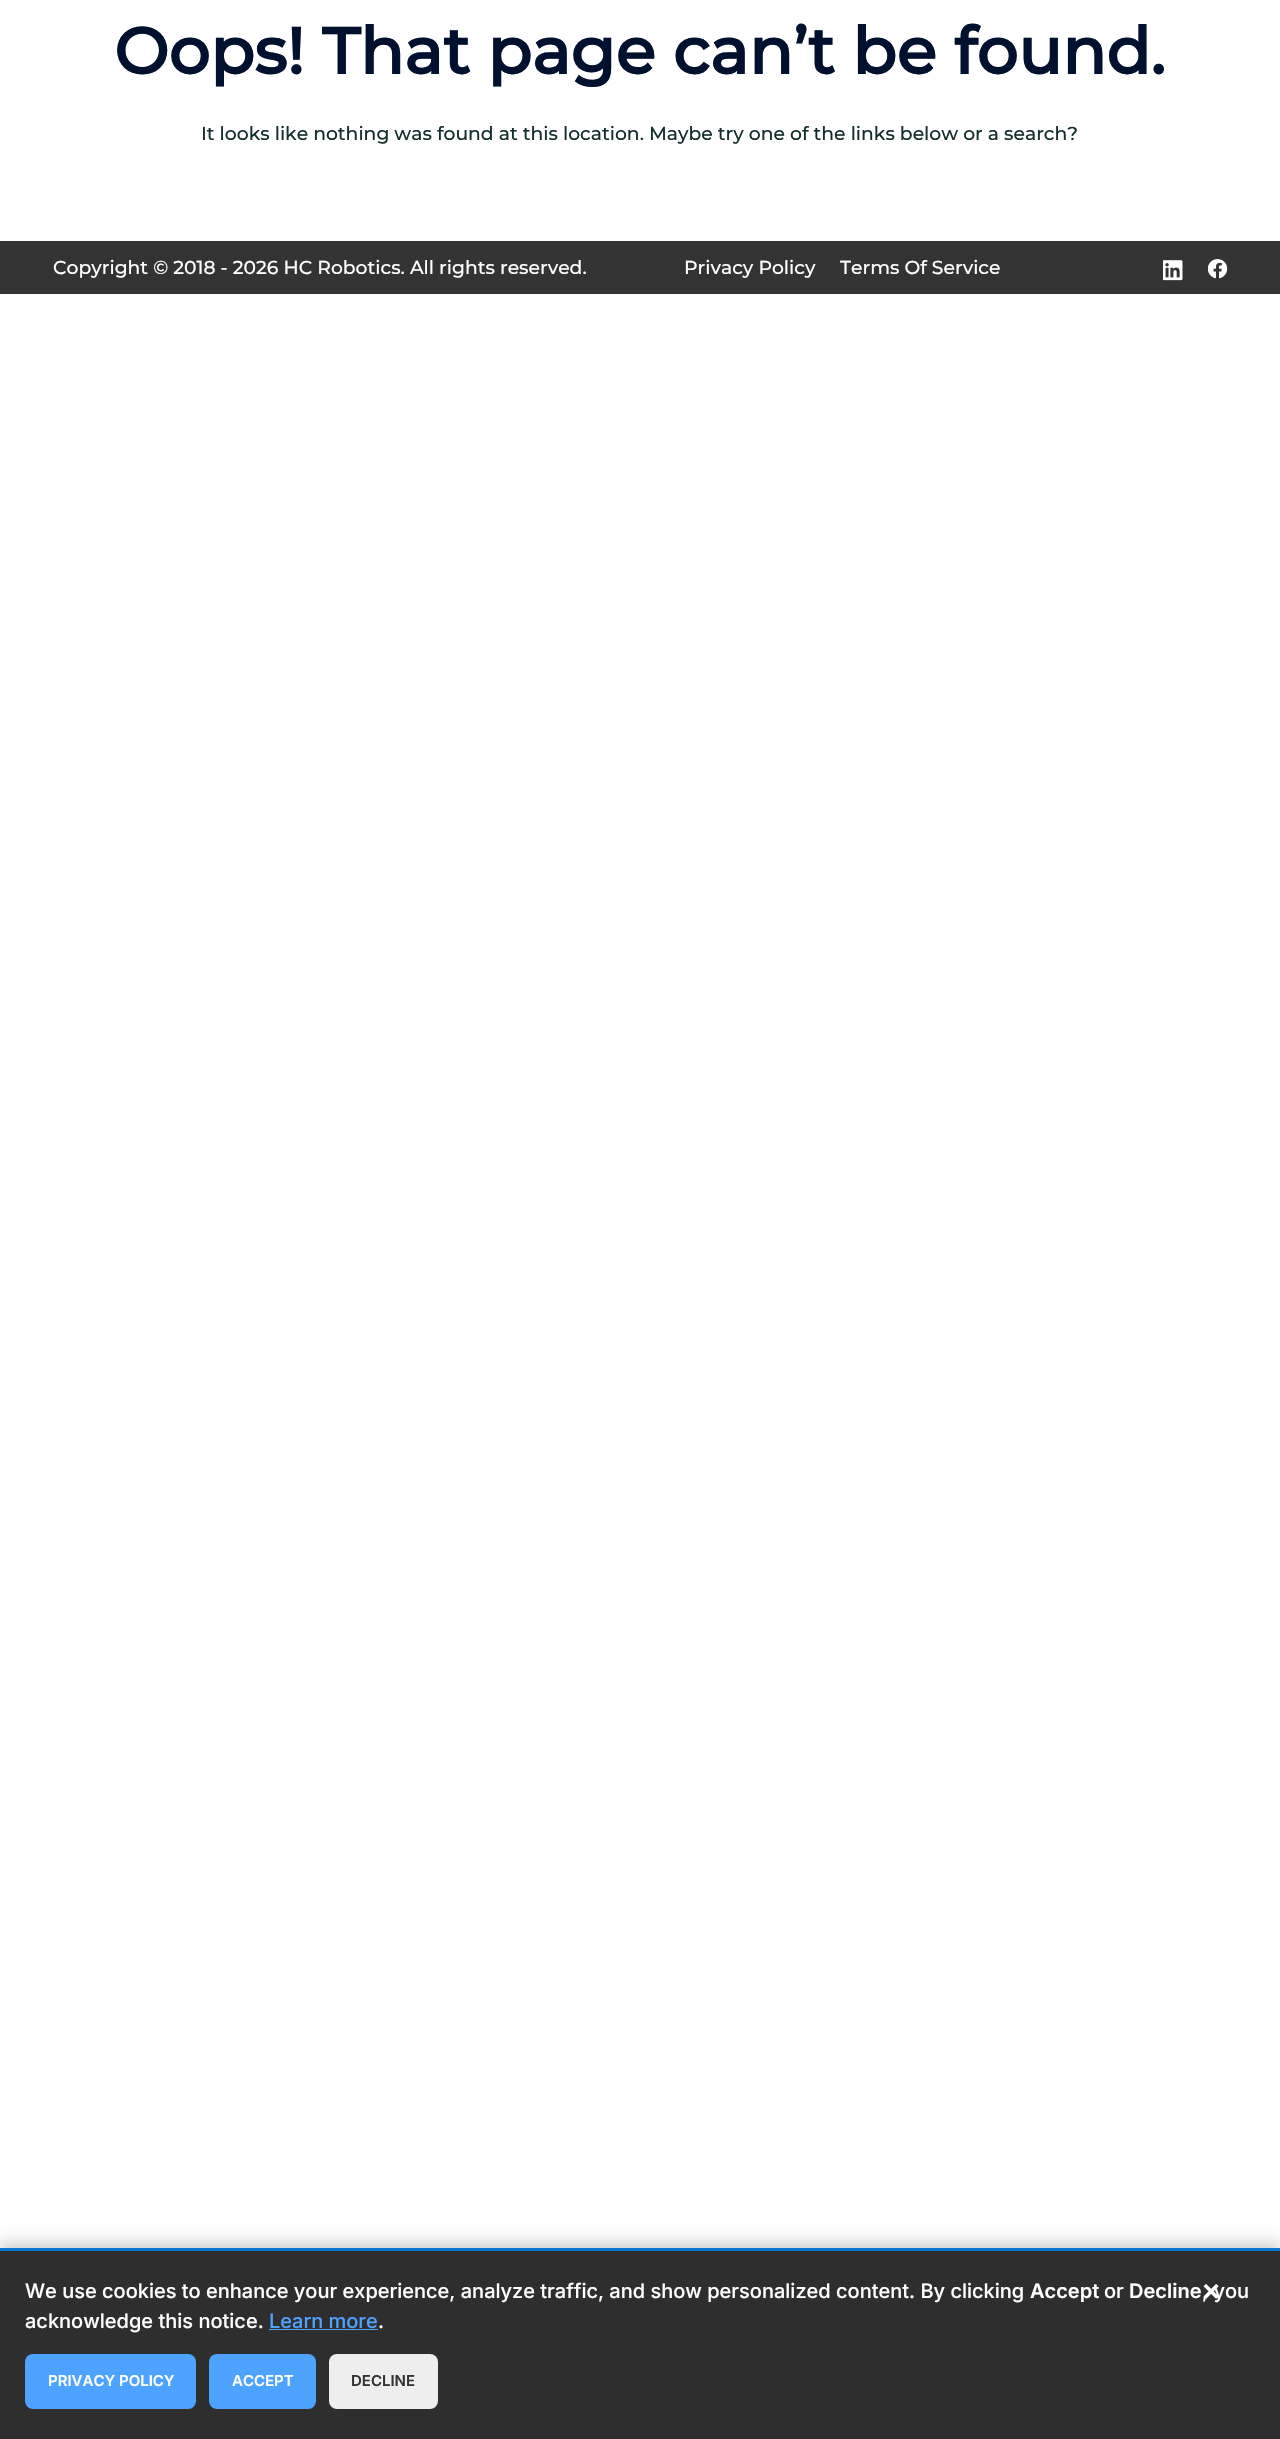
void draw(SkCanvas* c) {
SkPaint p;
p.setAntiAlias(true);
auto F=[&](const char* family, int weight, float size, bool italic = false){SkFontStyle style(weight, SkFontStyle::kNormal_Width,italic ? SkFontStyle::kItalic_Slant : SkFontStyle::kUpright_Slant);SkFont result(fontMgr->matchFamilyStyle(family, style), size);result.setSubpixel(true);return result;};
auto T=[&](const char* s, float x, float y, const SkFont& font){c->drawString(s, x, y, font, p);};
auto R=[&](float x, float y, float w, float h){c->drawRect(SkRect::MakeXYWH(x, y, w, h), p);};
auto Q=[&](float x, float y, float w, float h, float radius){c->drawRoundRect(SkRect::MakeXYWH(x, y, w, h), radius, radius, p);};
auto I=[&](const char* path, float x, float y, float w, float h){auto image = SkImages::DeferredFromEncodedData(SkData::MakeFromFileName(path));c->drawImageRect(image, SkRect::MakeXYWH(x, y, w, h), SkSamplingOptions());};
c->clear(0xffffffff);
auto f1 = F("Montserrat",700,65);
p.setColor(0xff00102e);
T("Oops! That page can’t be found.",114,74,f1);
auto f2 = F("Montserrat",500,18.75);
p.setColor(0xff142e2c);
T("It looks like nothing was found at this location. Maybe try one of the links below or a search?",201,140,f2);
p.setColor(0xff333333);
R(0,241,1280,53);
p.setColor(0xffffffff);
T("Copyright © 2018 - 2026 HC Robotics. All rights reserved.",53,274,f2);
T("Privacy Policy",684,274,f2);
T("Terms Of Service",840,274,f2);
I("1.png",1163,260,20,21);
I("2.png",1208,259,20,20);
p.setColor(0x33000000);
p.setMaskFilter(SkMaskFilter::MakeBlur(kNormal_SkBlurStyle, 7.5));
c->drawRect(SkRect::MakeXYWH(0,2243,1280,192),p);
p.setMaskFilter(nullptr);
p.setColor(0xff2e2e2e);
R(0,2251,1280,188);
p.setColor(0xff0a76d1);
R(0,2248,1280,3);
auto f3 = F("Inter",500,20);
p.setColor(0xffffffff);
T("We use cookies to enhance your experience, analyze traffic, and show personalized content. By clicking",25,2298,f3);
auto f4 = F("Inter",600,20);
T("Accept",1030,2298,f4);
T("or",1104,2298,f3);
T("Decline",1129,2298,f4);
T(", you",1202,2298,f3);
T("acknowledge this notice.",25,2328,f3);
p.setColor(0xff4da3ff);
T("Learn more",269,2328,f3);
R(269,2329,109,1);
p.setColor(0xffffffff);
T(".",378,2328,f3);
p.setColor(0xff4da3ff);
Q(25,2354,171,55,8);
auto f5 = F("Inter",600,15);
p.setColor(0xffffffff);
T("PRIVACY POLICY",48,2386,f5);
p.setColor(0xff4da3ff);
Q(209,2354,107,55,8);
p.setColor(0xffffffff);
T("ACCEPT",232,2386,f5);
p.setColor(0xffeeeeee);
Q(329,2354,109,55,8);
p.setColor(0xff333333);
T("DECLINE",351,2386,f5);
auto f6 = F("Inter",600,30);
p.setColor(0xffffffff);
T("×",1201,2300,f6);
}
